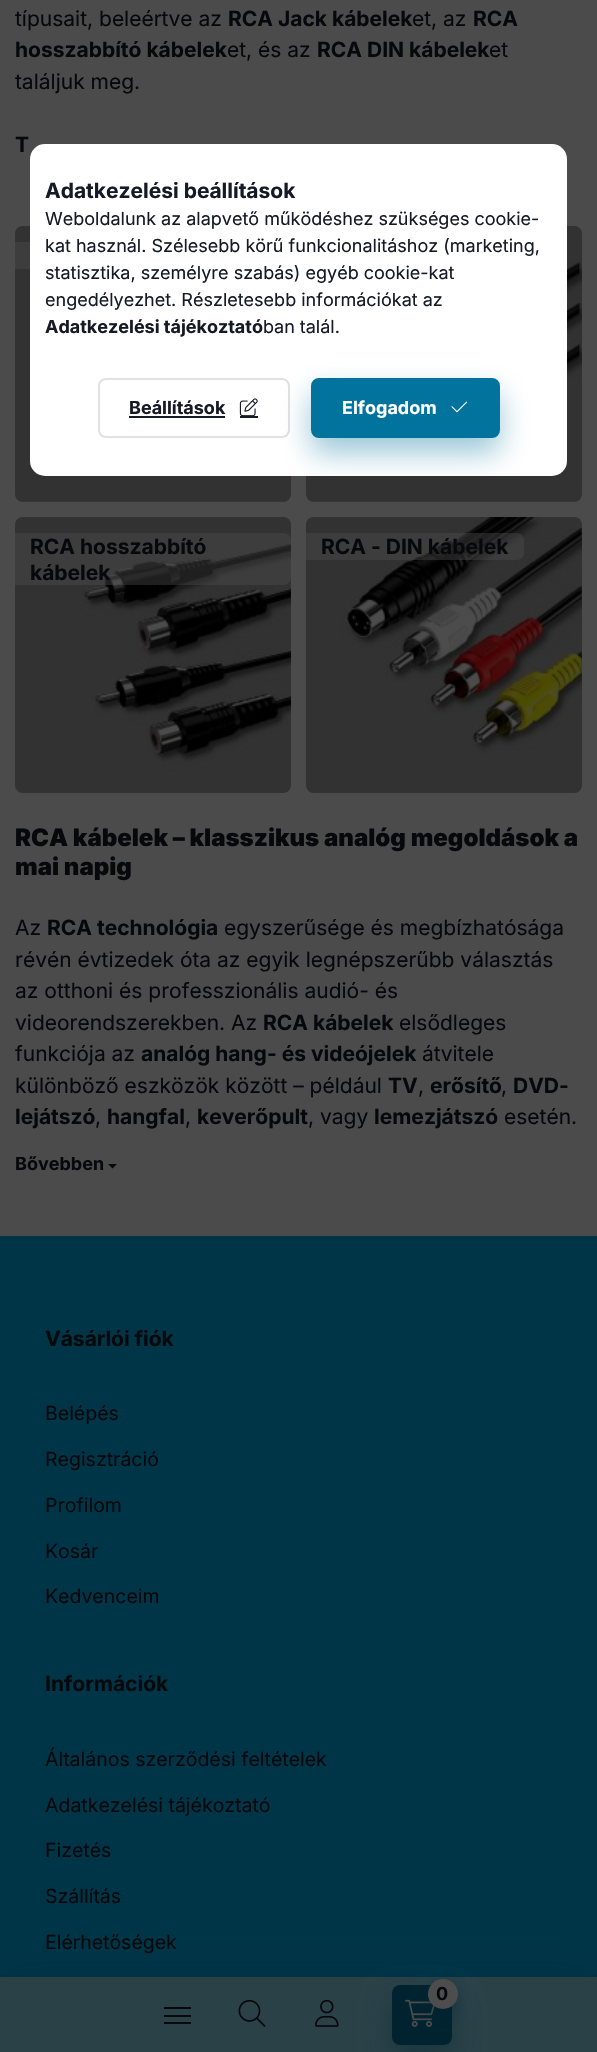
void draw(SkCanvas* c) {
SkPaint p;
p.setAntiAlias(true);
auto F=[&](const char* family, int weight, float size, bool italic = false){SkFontStyle style(weight, SkFontStyle::kNormal_Width,italic ? SkFontStyle::kItalic_Slant : SkFontStyle::kUpright_Slant);SkFont result(fontMgr->matchFamilyStyle(family, style), size);result.setSubpixel(true);return result;};
auto T=[&](const char* s, float x, float y, const SkFont& font){c->drawString(s, x, y, font, p);};
auto R=[&](float x, float y, float w, float h){c->drawRect(SkRect::MakeXYWH(x, y, w, h), p);};
auto Q=[&](float x, float y, float w, float h, float radius){c->drawRoundRect(SkRect::MakeXYWH(x, y, w, h), radius, radius, p);};
auto I=[&](const char* path, float x, float y, float w, float h){auto image = SkImages::DeferredFromEncodedData(SkData::MakeFromFileName(path));c->drawImageRect(image, SkRect::MakeXYWH(x, y, w, h), SkSamplingOptions());};
auto P=[&](const char* data, bool evenOdd = false){SkPath result = *SkParsePath::FromSVGString(data);if (evenOdd) result.setFillType(SkPathFillType::kEvenOdd);return result;};
c->clear(0xff4b4b4b);
auto f1 = F("Inter",400,21);
p.setColor(0xff07080b);
T("típusait, beleértve az",15,26,f1);
auto f2 = F("Inter",700,21);
T("RCA Jack kábelek",228,26,f2);
T("et, az",412,26,f1);
T("RCA",473,26,f2);
T("hosszabbító kábelek",15,57,f2);
T("et, és az",227,57,f1);
T("RCA DIN kábelek",317,57,f2);
T("et",489,57,f1);
T("találjuk meg.",15,89,f1);
T("T",15,152,f2);
I("1.png",15,226,276,276);
p.setColor(0xff3d3d3d);
R(15,242,15,27);
I("2.png",306,226,276,276);
I("3.png",15,517,276,276);
p.setColor(0x664d4d4d);
c->drawPath(P("M15 533h268c4.5 0 8 3.5 8 8v36c0 4.5-3.5 8-8 8h-268z"),p);
p.setColor(0xff07080b);
T("RCA hosszabbító",30,554,f2);
T("kábelek",30,580,f2);
I("4.png",306,517,276,276);
p.setColor(0x664d4d4d);
c->drawPath(P("M306 533h210c4.5 0 8 3.5 8 8v11c0 4.5-3.5 8-8 8h-210z"),p);
p.setColor(0xff07080b);
T("RCA - DIN kábelek",321,554,f2);
auto f3 = F("Inter",900,24);
T("RCA kábelek – klasszikus analóg megoldások a",15,846,f3);
T("mai napig",15,875,f3);
T("Az",15,935,f1);
T("RCA technológia",47,935,f2);
T("egyszerűsége és megbízhatósága",224,935,f1);
T("révén évtizedek óta az egyik legnépszerűbb választás",15,967,f1);
T("az otthoni és professzionális audió- és",15,998,f1);
T("videorendszerekben. Az",15,1030,f1);
T("RCA kábelek",263,1030,f2);
T("elsődleges",399,1030,f1);
T("funkciója az",15,1061,f1);
T("analóg hang- és videójelek",141,1061,f2);
T("átvitele",422,1061,f1);
T("különböző eszközök között – például",15,1093,f1);
T("TV",388,1093,f2);
T(",",418,1093,f1);
T("erősítő",430,1093,f2);
T(",",501,1093,f1);
T("DVD-",513,1093,f2);
T("lejátszó",15,1124,f2);
T(",",95,1124,f1);
T("hangfal",107,1124,f2);
T(",",185,1124,f1);
T("keverőpult",197,1124,f2);
T(", vagy",308,1124,f1);
T("lemezjátszó",374,1124,f2);
T("esetén.",504,1124,f1);
auto f4 = F("Inter",700,18);
T("Bővebben",15,1170,f4);
c->drawPath(P("M108 1164h9l-4.5 4.5z"),p);
p.setColor(0xff003447);
R(0,1236,597,741);
p.setColor(0xff07080b);
T("Vásárlói fiók",45,1346,f2);
auto f5 = F("Inter",400,19.5);
T("Belépés",45,1420,f5);
T("Regisztráció",45,1466,f5);
T("Profilom",45,1512,f5);
T("Kosár",45,1558,f5);
T("Kedvenceim",45,1603,f5);
T("Információk",45,1691,f2);
T("Általános szerződési feltételek",45,1766,f5);
T("Adatkezelési tájékoztató",45,1812,f5);
T("Fizetés",45,1857,f5);
T("Szállítás",45,1903,f5);
T("Elérhetőségek",45,1949,f5);
p.setColor(0x3301232f);
p.setMaskFilter(SkMaskFilter::MakeBlur(kNormal_SkBlurStyle, 22.5));
c->drawRect(SkRect::MakeXYWH(0,1977,597,75),p);
p.setMaskFilter(nullptr);
p.setColor(0xff2b4148);
R(0,1977,597,75);
p.setColor(0x6601232f);
p.setMaskFilter(SkMaskFilter::MakeBlur(kNormal_SkBlurStyle, 15));
c->drawRoundRect(SkRect::MakeXYWH(392,2000,60,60),8,8,p);
p.setMaskFilter(nullptr);
p.setColor(0xff01232f);
Q(392,1985,60,60,8);
I("5.png",405,1999,30,28);
p.setColor(0x6601232f);
p.setMaskFilter(SkMaskFilter::MakeBlur(kNormal_SkBlurStyle, 7.5));
c->drawRoundRect(SkRect::MakeXYWH(428,1986,30,30),15,15,p);
p.setMaskFilter(nullptr);
p.setColor(0xff4d4d4d);
c->drawCircle(443,1994,15,p);
p.setColor(0xff07080b);
T("0",436,2000,f4);
R(164,2007,27,2);
R(164,2015,27,2);
R(164,2022,27,2);
I("6.png",238,1999,28,28);
I("7.png",315,1999,24,28);
p.setColor(0xffffffff);
Q(30,144,537,332,15);
p.setColor(0xff161926);
T("Adatkezelési beállítások",45,198,f2);
auto f6 = F("Inter",400,18);
T("Weboldalunk az alapvető működéshez szükséges cookie-",45,225,f6);
T("kat használ. Szélesebb körű funkcionalitáshoz (marketing,",45,252,f6);
T("statisztika, személyre szabás) egyéb cookie-kat",45,279,f6);
T("engedélyezhet. Részletesebb információkat az",45,306,f6);
T("Adatkezelési tájékoztató",45,333,f4);
T("ban talál.",263,333,f6);
p.setStroke(true);
p.setStrokeWidth(2);
p.setColor(0xffe1e1e1);
c->drawRoundRect(SkRect::MakeXYWH(99,379,190,58),7,7,p);
p.setStroke(false);
p.setColor(0xff161926);
T("Beállítások",129,414,f4);
R(129,416,96,2);
I("8.png",239,398,19,18);
R(240,416,18,2);
c->save();
c->clipPath(P("M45 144h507c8.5 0 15 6.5 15 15v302c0 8.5-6.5 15-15 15h-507c-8.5 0-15-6.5-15-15v-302c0-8.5 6.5-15 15-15z"),true);
p.setColor(0x6602739c);
p.setMaskFilter(SkMaskFilter::MakeBlur(kNormal_SkBlurStyle, 15));
c->drawRoundRect(SkRect::MakeXYWH(311,393,189,60),8,8,p);
p.setMaskFilter(nullptr);
c->restore();
p.setColor(0xff02739c);
c->drawRoundRect(SkRect::MakeXYWH(312,379,187,58),7,7,p);
p.setStroke(true);
c->drawRoundRect(SkRect::MakeXYWH(312,379,187,58),7,7,p);
p.setStroke(false);
p.setColor(0xffffffff);
T("Elfogadom",342,414,f4);
I("9.png",451,401,17,12);
}
